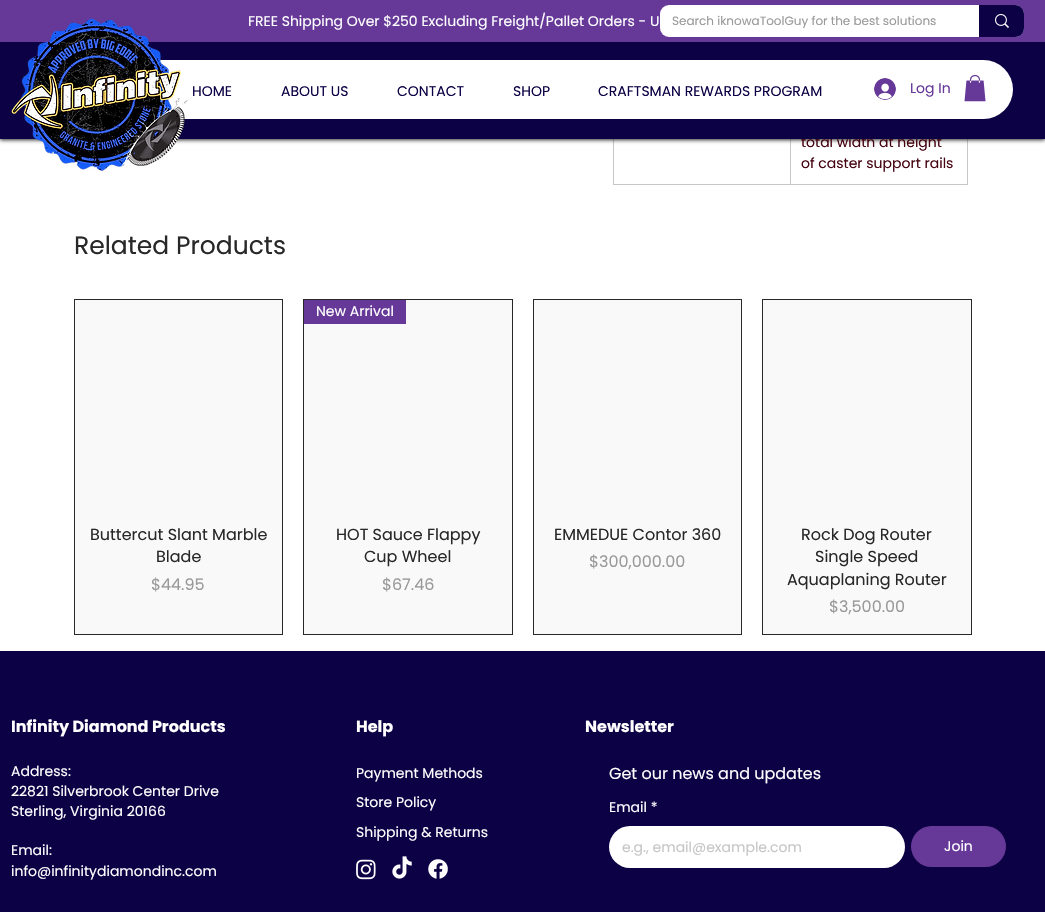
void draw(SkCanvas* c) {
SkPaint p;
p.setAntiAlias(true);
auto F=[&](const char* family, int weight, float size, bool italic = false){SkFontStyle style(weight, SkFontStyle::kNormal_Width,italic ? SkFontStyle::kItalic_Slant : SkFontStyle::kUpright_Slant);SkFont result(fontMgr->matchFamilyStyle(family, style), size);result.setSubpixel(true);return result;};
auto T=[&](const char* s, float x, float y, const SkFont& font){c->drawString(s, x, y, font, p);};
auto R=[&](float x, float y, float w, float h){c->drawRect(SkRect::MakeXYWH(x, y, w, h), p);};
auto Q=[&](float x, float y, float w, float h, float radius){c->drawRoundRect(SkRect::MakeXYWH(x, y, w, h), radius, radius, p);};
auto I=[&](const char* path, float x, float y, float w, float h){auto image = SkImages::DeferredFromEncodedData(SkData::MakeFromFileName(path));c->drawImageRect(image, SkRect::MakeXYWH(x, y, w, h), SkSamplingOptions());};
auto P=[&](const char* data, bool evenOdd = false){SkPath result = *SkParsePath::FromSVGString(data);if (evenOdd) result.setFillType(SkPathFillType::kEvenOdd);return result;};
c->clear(0xffffffff);
p.setColor(0xffc7c7c7);
R(967,139,1,46);
R(790,184,178,1);
R(790,139,1,46);
R(613,184,178,1);
R(613,139,1,46);
p.setColor(0xff282828);
p.setMaskFilter(SkMaskFilter::MakeBlur(kNormal_SkBlurStyle, 2));
c->drawRect(SkRect::MakeXYWH(0,1,1045,139),p);
p.setMaskFilter(nullptr);
auto f1 = F("Poppins",400,14);
p.setColor(0xff440410);
T("total width at height",801,147,f1);
p.setColor(0xff0c0145);
R(0,42,1045,97);
p.setColor(0xff663898);
R(0,0,1045,42);
p.setColor(0xffffffff);
T("FREE Shipping Over $250 Excluding Freight/Pallet Orders - U",248,26,f1);
Q(33,60,980,59,29.5);
p.setColor(0xff0c0145);
T("HOME",192,96,f1);
T("ABOUT US",281,96,f1);
T("CONTACT",397,96,f1);
T("SHOP",513,96,f1);
T("CRAFTSMAN REWARDS PROGRAM",598,96,f1);
I("1.png",874,78,22,22);
p.setColor(0xff663898);
T("Log In",910,93,f1);
I("2.png",964,75,22,27);
I("3.png",11,18,181,153);
p.setColor(0xffffffff);
Q(660,5,364,32,9);
auto f2 = F("Poppins",400,12);
p.setColor(0xff999999);
T("Search iknowaToolGuy for the best solutions",672,25,f2);
p.setColor(0xff0c0145);
c->drawPath(P("M979 5h36c5 0 9 4 9 9v14c0 5-4 9-9 9h-36z"),p);
I("4.png",995,14,14,14);
p.setColor(0xff440410);
T("of caster support rails",801,168,f1);
auto f3 = F("Poppins",400,25);
p.setColor(0xff282828);
T("Related Products",74,254,f3);
p.setColor(0xfff9f9f9);
c->drawRect(SkRect::MakeXYWH(74.5,299.5,208,335),p);
p.setStroke(true);
p.setStrokeWidth(1);
p.setColor(0xff282828);
c->drawRect(SkRect::MakeXYWH(74.5,299.5,208,335),p);
auto f4 = F("Poppins",400,16);
p.setStroke(false);
T("Buttercut Slant Marble",90,540,f4);
T("Blade",156,562,f4);
p.setColor(0xff999999);
T("$44.95",151,590,f4);
p.setColor(0xfff9f9f9);
c->drawRect(SkRect::MakeXYWH(303.5,299.5,209,335),p);
p.setStroke(true);
p.setColor(0xff282828);
c->drawRect(SkRect::MakeXYWH(303.5,299.5,209,335),p);
p.setStroke(false);
p.setColor(0xff663898);
R(304,300,102,24);
p.setColor(0xffffffff);
T("New Arrival",316,316,f1);
p.setColor(0xff282828);
T("HOT Sauce Flappy",336,540,f4);
T("Cup Wheel",364,562,f4);
p.setColor(0xff999999);
T("$67.46",382,590,f4);
p.setColor(0xfff9f9f9);
c->drawRect(SkRect::MakeXYWH(533.5,299.5,208,335),p);
p.setStroke(true);
p.setColor(0xff282828);
c->drawRect(SkRect::MakeXYWH(533.5,299.5,208,335),p);
p.setStroke(false);
T("EMMEDUE Contor 360",554,540,f4);
p.setColor(0xff999999);
T("$300,000.00",589,567,f4);
p.setColor(0xfff9f9f9);
c->drawRect(SkRect::MakeXYWH(762.5,299.5,209,335),p);
p.setStroke(true);
p.setColor(0xff282828);
c->drawRect(SkRect::MakeXYWH(762.5,299.5,209,335),p);
p.setStroke(false);
T("Rock Dog Router",801,540,f4);
T("Single Speed",815,562,f4);
T("Aquaplaning Router",787,585,f4);
p.setColor(0xff999999);
T("$3,500.00",829,612,f4);
p.setColor(0xff0c0145);
R(0,651,1045,261);
auto f5 = F("Poppins",700,16);
p.setColor(0xffffffff);
T("Infinity Diamond Products",11,732,f5);
T("Address:",11,776,f1);
T("22821 Silverbrook Center Drive",11,796,f1);
T("Sterling, Virginia 20166",11,816,f1);
T("Email:",11,855,f1);
T("info@infinitydiamondinc.com",11,876,f1);
T("Help",356,732,f5);
T("Payment Methods",356,778,f1);
T("Store Policy",356,807,f1);
T("Shipping & Returns",356,837,f1);
I("5.png",356,859,20,21);
I("6.png",392,856,20,23);
I("7.png",428,859,20,20);
T("Newsletter",585,732,f5);
T("Get our news and updates",609,779,f4);
T("Email *",609,812,f1);
Q(609,826,296,42,21);
p.setColor(0xffc7c7c7);
T("e.g., email@example.com",622,852,f1);
p.setColor(0xff663898);
Q(911,826,95,41,20.5);
p.setColor(0xffffffff);
T("Join",944,851,f1);
}
